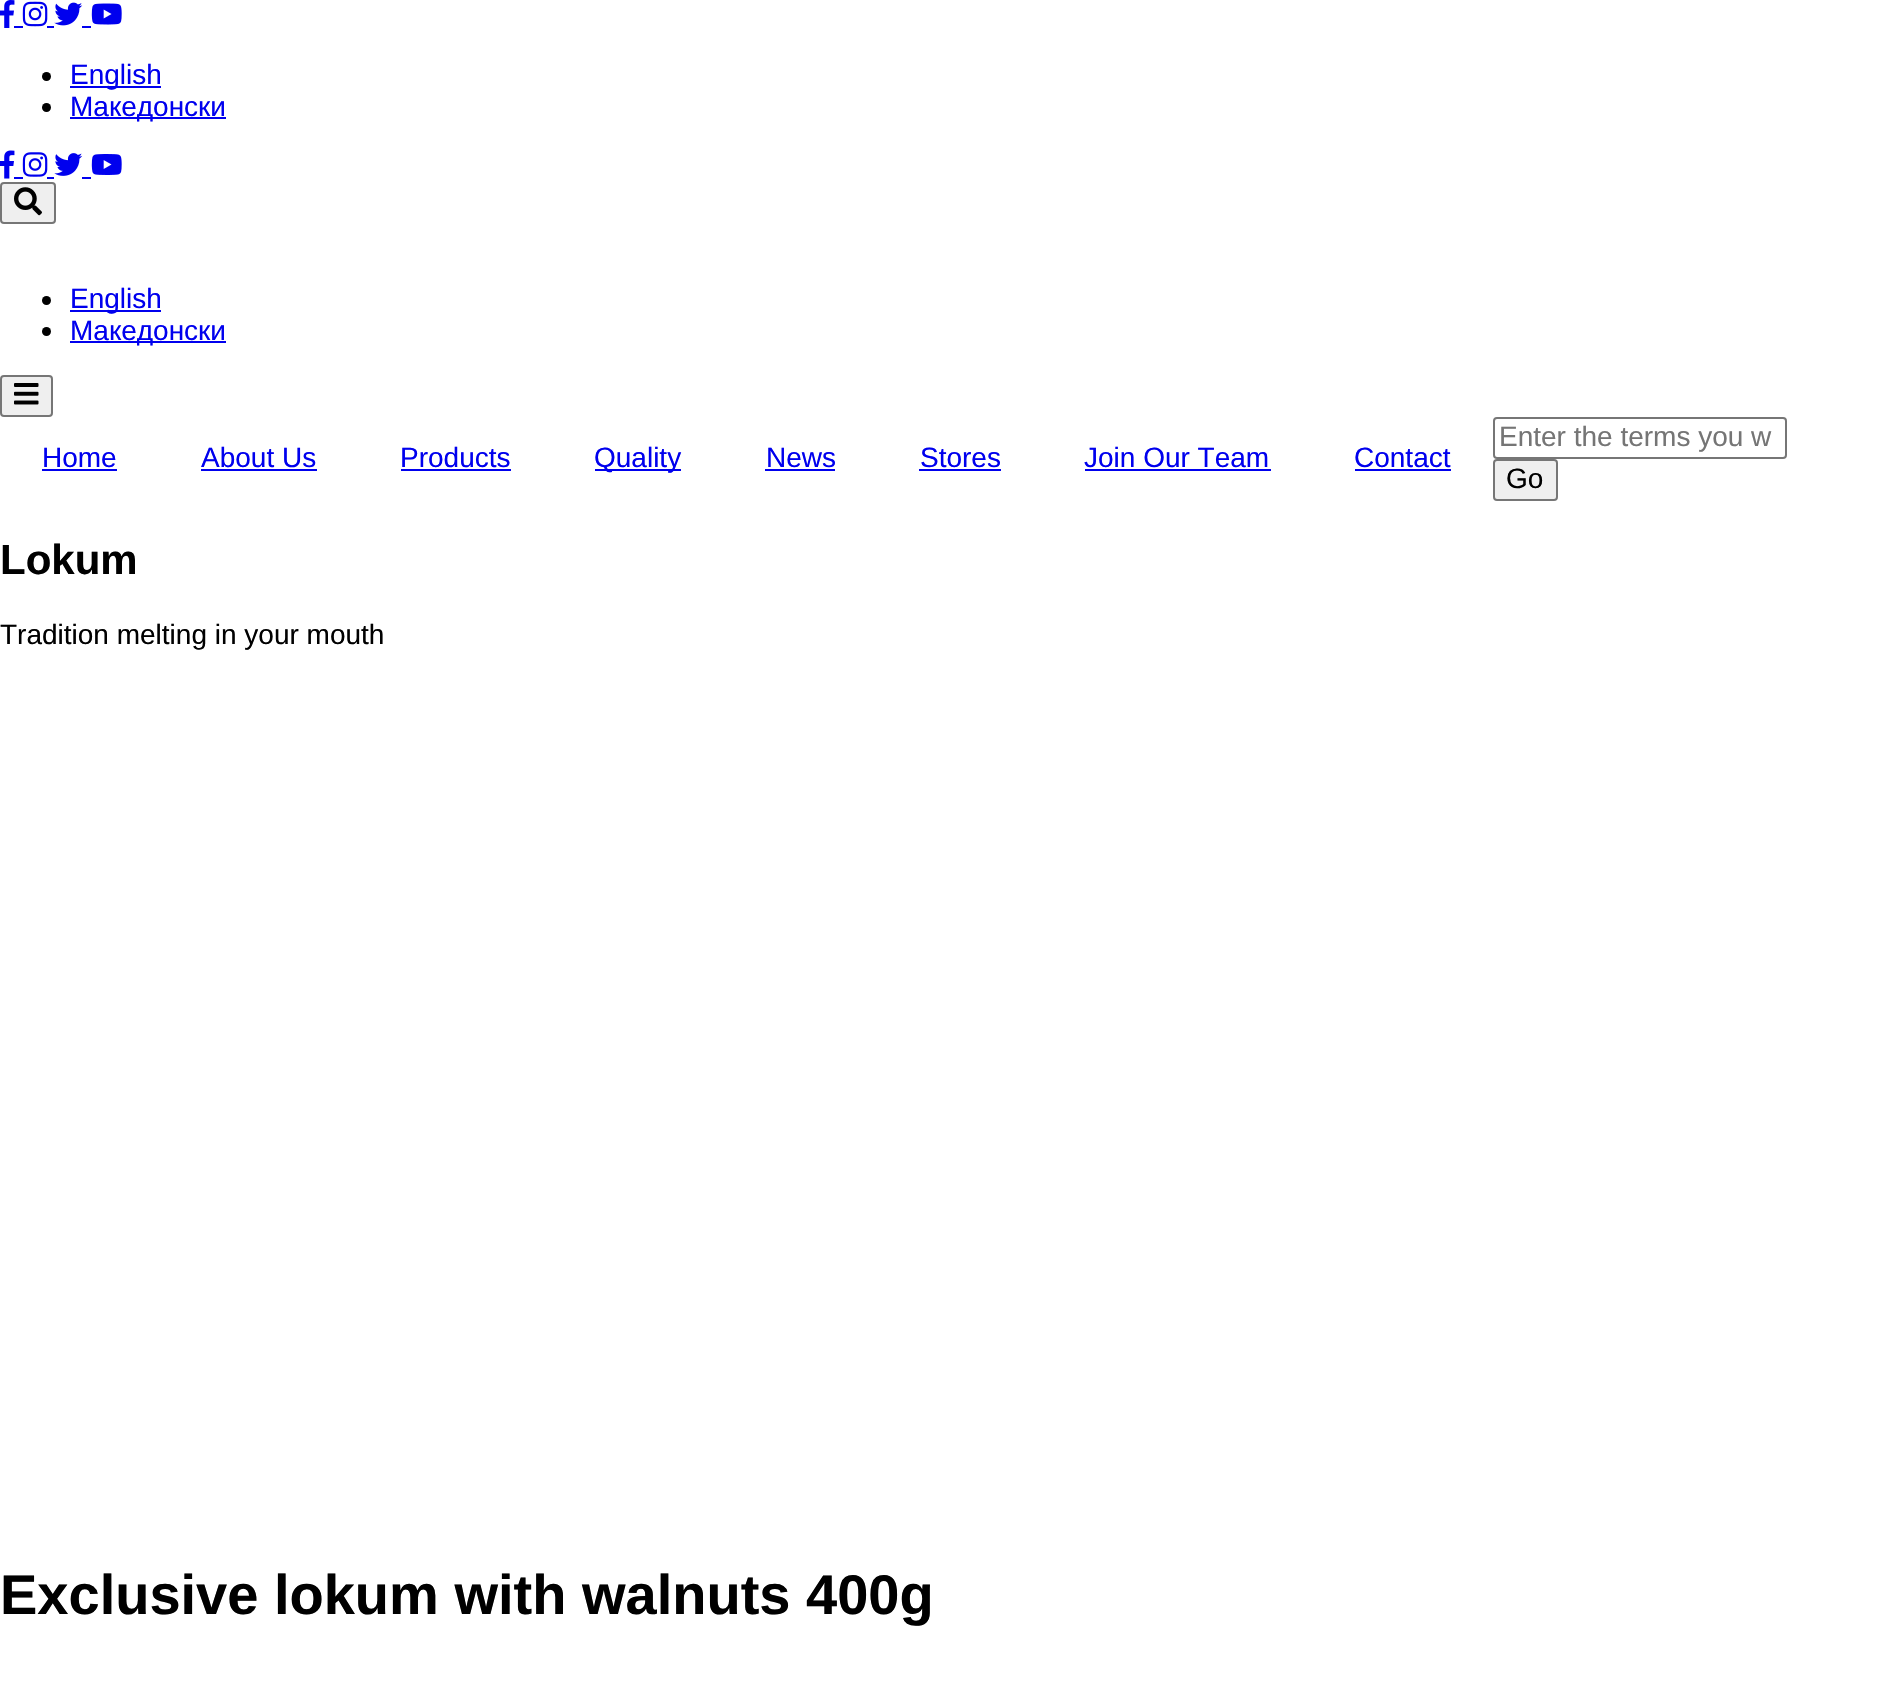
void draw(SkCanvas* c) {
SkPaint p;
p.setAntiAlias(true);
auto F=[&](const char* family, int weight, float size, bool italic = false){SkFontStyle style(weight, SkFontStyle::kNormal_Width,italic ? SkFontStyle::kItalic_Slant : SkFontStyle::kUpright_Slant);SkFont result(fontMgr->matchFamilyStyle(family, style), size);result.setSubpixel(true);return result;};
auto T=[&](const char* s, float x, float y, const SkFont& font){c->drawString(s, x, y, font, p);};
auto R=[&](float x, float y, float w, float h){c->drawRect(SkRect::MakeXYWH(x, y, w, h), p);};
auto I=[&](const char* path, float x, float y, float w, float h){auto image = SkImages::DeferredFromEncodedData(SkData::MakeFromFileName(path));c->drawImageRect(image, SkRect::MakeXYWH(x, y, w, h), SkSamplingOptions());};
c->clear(0xffffffff);
I("1.png",0,0,15,28);
p.setColor(0xff0000ee);
R(14,26,9,2);
I("2.png",22,1,26,26);
R(47,26,7,2);
I("3.png",54,2,29,24);
R(82,26,9,2);
I("4.png",91,3,31,22);
p.setColor(0xff000000);
c->drawCircle(46.5,76.5,4.5,p);
p.setColor(0xff0000ee);
R(70,86,91,2);
auto f1 = F("Liberation Sans",400,28);
T("English",70,84,f1);
p.setColor(0xff000000);
c->drawCircle(46.5,107.5,4.5,p);
p.setColor(0xff0000ee);
R(70,117,156,2);
T("Македонски",70,116,f1);
I("5.png",0,150,15,29);
R(14,177,9,2);
I("6.png",22,152,26,25);
R(47,177,7,2);
I("7.png",54,153,29,23);
R(82,177,9,2);
I("8.png",91,154,31,21);
p.setColor(0xffefefef);
c->drawRoundRect(SkRect::MakeXYWH(1,183,54,40),3,3,p);
p.setStroke(true);
p.setStrokeWidth(2);
p.setColor(0xff767676);
c->drawRoundRect(SkRect::MakeXYWH(1,183,54,40),3,3,p);
I("9.png",14,187,28,29);
p.setStroke(false);
p.setColor(0xff000000);
c->drawCircle(46.5,300.5,4.5,p);
p.setColor(0xff0000ee);
R(70,310,91,2);
T("English",70,308,f1);
p.setColor(0xff000000);
c->drawCircle(46.5,331.5,4.5,p);
p.setColor(0xff0000ee);
R(70,341,156,2);
T("Македонски",70,340,f1);
p.setColor(0xffefefef);
c->drawRoundRect(SkRect::MakeXYWH(1,376,51,40),3,3,p);
p.setStroke(true);
p.setColor(0xff767676);
c->drawRoundRect(SkRect::MakeXYWH(1,376,51,40),3,3,p);
I("10.png",14,383,25,22);
p.setStroke(false);
p.setColor(0xff0000ee);
T("Home",42,467,f1);
R(42,469,75,2);
T("About Us",201,467,f1);
R(201,469,116,2);
T("Products",400,467,f1);
R(401,469,110,2);
R(595,469,86,2);
T("Quality",594,467,f1);
T("News",766,467,f1);
R(765,469,70,2);
T("Stores",920,467,f1);
R(919,469,82,2);
T("Join Our Team",1084,467,f1);
R(1085,469,186,2);
T("Contact",1354,467,f1);
R(1355,469,96,2);
p.setStroke(true);
p.setColor(0xff767676);
c->drawRoundRect(SkRect::MakeXYWH(1494,418,292,40),3,3,p);
p.setStroke(false);
p.setColor(0xff757575);
T("Enter the terms you w",1499,446,f1);
p.setColor(0xffefefef);
c->drawRoundRect(SkRect::MakeXYWH(1494,460,63,40),3,3,p);
p.setStroke(true);
p.setColor(0xff767676);
c->drawRoundRect(SkRect::MakeXYWH(1494,460,63,40),3,3,p);
p.setStroke(false);
p.setColor(0xff000000);
T("Go",1506,488,f1);
auto f2 = F("Liberation Sans",700,42);
T("Lokum",0,574,f2);
T("Tradition melting in your mouth",0,644,f1);
auto f3 = F("Liberation Sans",700,56);
T("Exclusive lokum with walnuts 400g",0,1614,f3);
}
